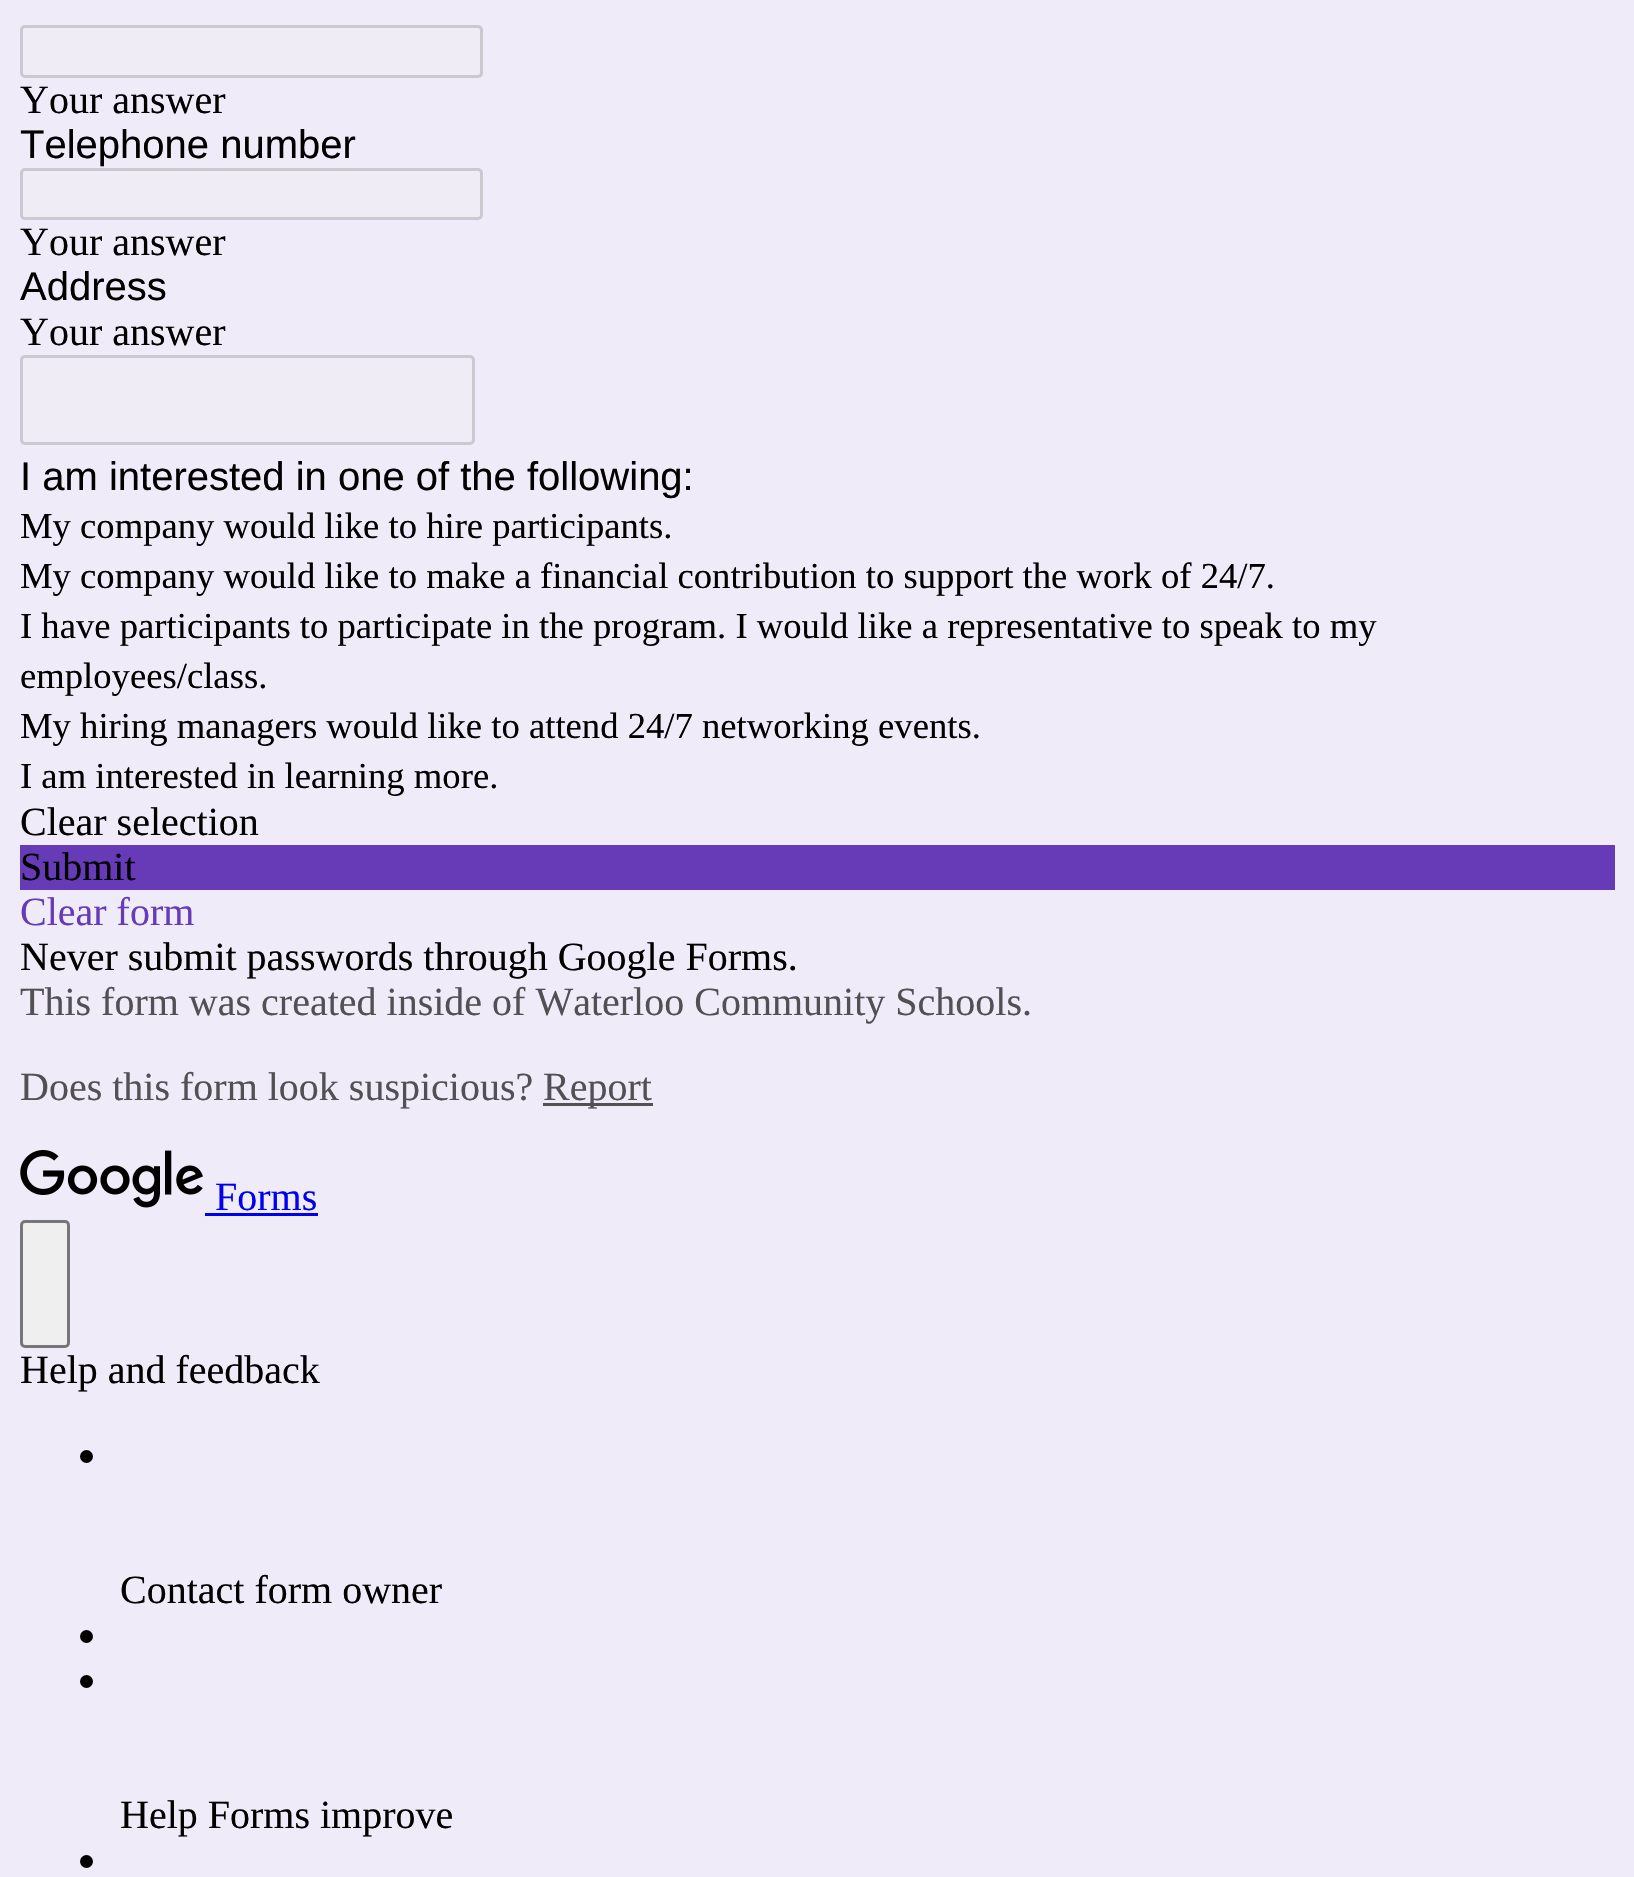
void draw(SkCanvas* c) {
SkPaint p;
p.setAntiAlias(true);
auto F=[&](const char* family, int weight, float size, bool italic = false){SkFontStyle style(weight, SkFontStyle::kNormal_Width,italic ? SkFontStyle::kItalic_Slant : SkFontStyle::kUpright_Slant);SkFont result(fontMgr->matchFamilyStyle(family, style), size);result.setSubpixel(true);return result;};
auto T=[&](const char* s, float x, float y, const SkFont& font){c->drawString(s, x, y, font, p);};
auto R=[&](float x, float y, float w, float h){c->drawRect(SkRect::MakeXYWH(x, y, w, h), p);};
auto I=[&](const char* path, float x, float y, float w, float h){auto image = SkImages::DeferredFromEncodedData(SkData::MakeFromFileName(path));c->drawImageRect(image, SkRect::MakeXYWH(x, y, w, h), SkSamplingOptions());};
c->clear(0xfff0ebf8);
p.setColor(0xfff0ecf5);
c->drawRoundRect(SkRect::MakeXYWH(21.5,26.5,460,50),3.5,3.5,p);
p.setStroke(true);
p.setStrokeWidth(3);
p.setColor(0xffcbc9cf);
c->drawRoundRect(SkRect::MakeXYWH(21.5,26.5,460,50),3.5,3.5,p);
auto f1 = F("Liberation Serif",400,40);
p.setStroke(false);
p.setColor(0xff000000);
T("Your answer",20,113,f1);
auto f2 = F("Liberation Sans",400,40);
T("Telephone number",20,158,f2);
p.setColor(0xfff0ecf5);
c->drawRoundRect(SkRect::MakeXYWH(21.5,169.5,460,49),3.5,3.5,p);
p.setStroke(true);
p.setColor(0xffcbc9cf);
c->drawRoundRect(SkRect::MakeXYWH(21.5,169.5,460,49),3.5,3.5,p);
p.setStroke(false);
p.setColor(0xff000000);
T("Your answer",20,255,f1);
T("Address",20,300,f2);
T("Your answer",20,345,f1);
p.setColor(0xfff0ecf5);
c->drawRoundRect(SkRect::MakeXYWH(21.5,356.5,452,87),3.5,3.5,p);
p.setStroke(true);
p.setColor(0xffcbc9cf);
c->drawRoundRect(SkRect::MakeXYWH(21.5,356.5,452,87),3.5,3.5,p);
p.setStroke(false);
p.setColor(0xff000000);
T("I am interested in one of the following:",20,490,f2);
auto f3 = F("Liberation Serif",400,36.65);
T("My company would like to hire participants.",20,538,f3);
T("My company would like to make a financial contribution to support the work of 24/7.",20,588,f3);
T("I have participants to participate in the program. I would like a representative to speak to my",20,638,f3);
T("employees/class.",20,688,f3);
T("My hiring managers would like to attend 24/7 networking events.",20,738,f3);
T("I am interested in learning more.",20,788,f3);
T("Clear selection",20,835,f1);
p.setColor(0xff673ab7);
R(20,845,1595,45);
p.setColor(0xff000000);
T("Submit",20,880,f1);
p.setColor(0xff673ab7);
T("Clear form",20,925,f1);
p.setColor(0xff000000);
T("Never submit passwords through Google Forms.",20,970,f1);
p.setColor(0xff525054);
T("This form was created inside of Waterloo Community Schools.",20,1015,f1);
T("Does this form look suspicious?",20,1100,f1);
R(543,1103,110,3);
T("Report",543,1100,f1);
I("1.png",20,1150,183,58);
p.setColor(0xff0000ee);
T("Forms",215,1210,f1);
R(205,1213,113,3);
p.setColor(0xffefefef);
c->drawRoundRect(SkRect::MakeXYWH(21.5,1221.5,47,125),3.5,3.5,p);
p.setStroke(true);
p.setColor(0xff767676);
c->drawRoundRect(SkRect::MakeXYWH(21.5,1221.5,47,125),3.5,3.5,p);
p.setStroke(false);
p.setColor(0xff000000);
T("Help and feedback",20,1383,f1);
c->drawCircle(86.5,1456.5,6.5,p);
T("Contact form owner",120,1603,f1);
c->drawCircle(86.5,1636.5,6.5,p);
c->drawCircle(86.5,1681.5,6.5,p);
T("Help Forms improve",120,1828,f1);
c->drawCircle(86.5,1861.5,6.5,p);
}
